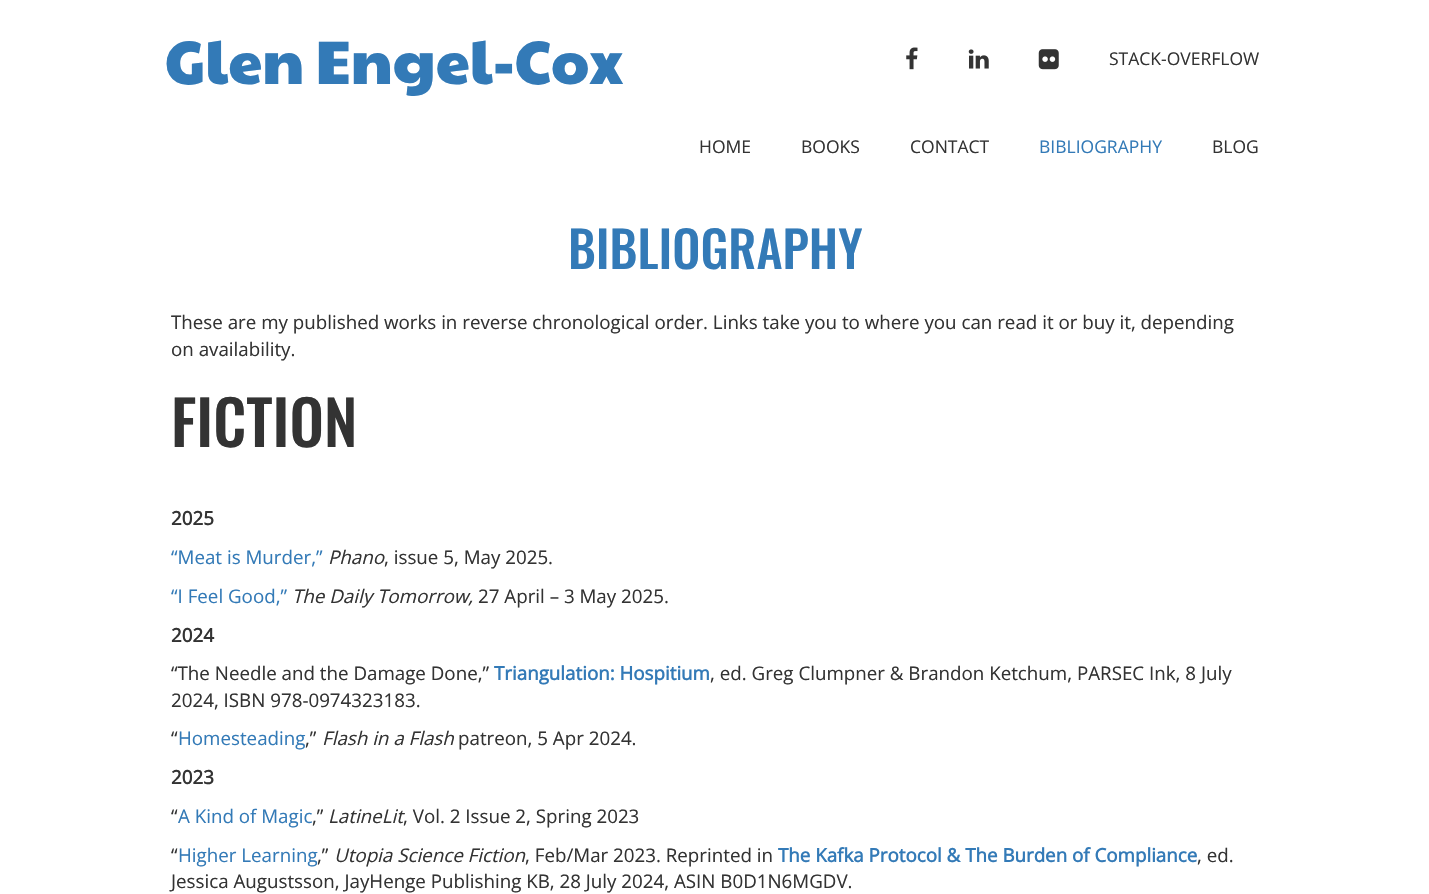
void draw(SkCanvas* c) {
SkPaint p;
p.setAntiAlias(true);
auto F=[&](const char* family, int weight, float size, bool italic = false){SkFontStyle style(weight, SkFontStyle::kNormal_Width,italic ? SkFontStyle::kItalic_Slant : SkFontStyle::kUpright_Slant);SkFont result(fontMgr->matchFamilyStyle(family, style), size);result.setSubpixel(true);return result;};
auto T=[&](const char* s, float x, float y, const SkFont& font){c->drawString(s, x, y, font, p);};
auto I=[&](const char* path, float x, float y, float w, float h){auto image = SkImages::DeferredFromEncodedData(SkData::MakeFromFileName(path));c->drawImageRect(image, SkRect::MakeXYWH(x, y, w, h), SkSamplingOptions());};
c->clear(0xffffffff);
auto f1 = F("Paytone One",400,61.25);
p.setColor(0xff337ab7);
T("Glen Engel-Cox",165,84,f1);
I("1.png",906,47,12,23);
I("2.png",968,49,21,20);
I("3.png",1038,49,21,21);
auto f2 = F("Open Sans",400,17.5);
p.setColor(0xff333333);
T("STACK-OVERFLOW",1109,65,f2);
T("HOME",699,153,f2);
T("BOOKS",801,153,f2);
T("CONTACT",910,153,f2);
p.setColor(0xff337ab7);
T("BIBLIOGRAPHY",1039,153,f2);
p.setColor(0xff333333);
T("BLOG",1212,153,f2);
auto f3 = F("Oswald",500,50);
p.setColor(0xff337ab7);
T("BIBLIOGRAPHY",568,269,f3);
auto f4 = F("Open Sans",400,18.75);
p.setColor(0xff333333);
T("These are my published works in reverse chronological order. Links take you to where you can read it or buy it, depending",171,329,f4);
T("on availability.",171,356,f4);
auto f5 = F("Oswald",500,61.25);
T("FICTION",171,447,f5);
auto f6 = F("Open Sans",700,18.75);
T("2025",171,525,f6);
p.setColor(0xff337ab7);
T("“Meat is Murder,”",171,564,f4);
auto f7 = F("Open Sans",400,18.75,true);
p.setColor(0xff333333);
T("Phano",328,564,f7);
T(", issue 5, May 2025.",384,564,f4);
p.setColor(0xff337ab7);
T("“I Feel Good,”",171,603,f4);
p.setColor(0xff333333);
T("The Daily Tomorrow,",292,603,f7);
T("27 April – 3 May 2025.",478,603,f4);
T("2024",171,642,f6);
T("“The Needle and the Damage Done,”",171,680,f4);
p.setColor(0xff337ab7);
T("Triangulation: Hospitium",494,680,f6);
p.setColor(0xff333333);
T(", ed. Greg Clumpner & Brandon Ketchum, PARSEC Ink, 8 July",710,680,f4);
T("2024, ISBN 978-0974323183.",171,707,f4);
T("“",171,745,f4);
p.setColor(0xff337ab7);
T("Homesteading",178,745,f4);
p.setColor(0xff333333);
T(",”",305,745,f4);
T("Flash in a Flash",322,745,f7);
T("patreon, 5 Apr 2024.",458,745,f4);
T("2023",171,784,f6);
T("“",171,823,f4);
p.setColor(0xff337ab7);
T("A Kind of Magic",178,823,f4);
p.setColor(0xff333333);
T(",”",312,823,f4);
T("LatineLit",328,823,f7);
T(", Vol. 2 Issue 2, Spring 2023",403,823,f4);
T("“",171,862,f4);
p.setColor(0xff337ab7);
T("Higher Learning",178,862,f4);
p.setColor(0xff333333);
T(",”",317,862,f4);
T("Utopia Science Fiction",334,862,f7);
T(", Feb/Mar 2023. Reprinted in",525,862,f4);
p.setColor(0xff337ab7);
T("The Kafka Protocol & The Burden of Compliance",778,862,f6);
p.setColor(0xff333333);
T(", ed.",1197,862,f4);
T("Jessica Augustsson, JayHenge Publishing KB, 28 July 2024, ASIN B0D1N6MGDV.",171,888,f4);
}
